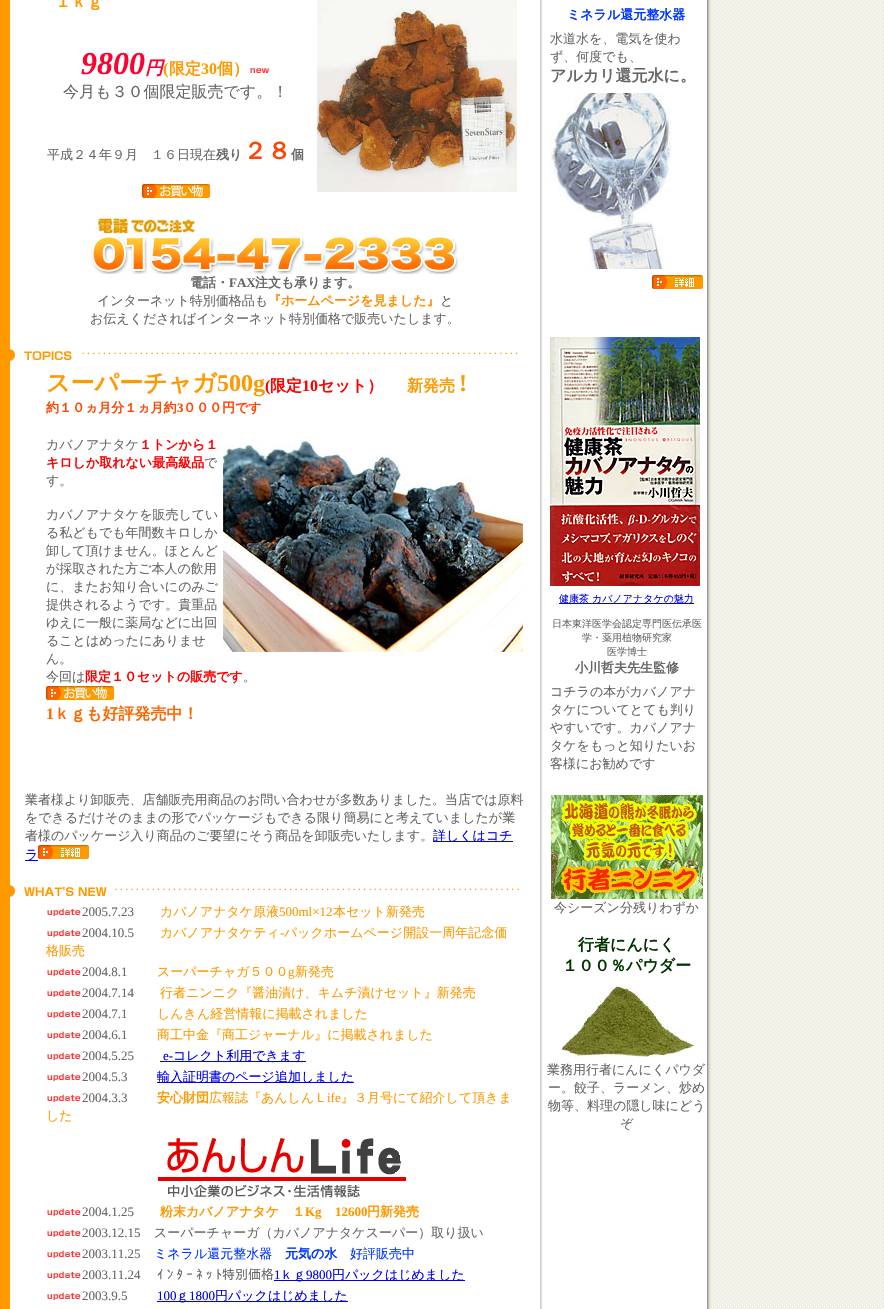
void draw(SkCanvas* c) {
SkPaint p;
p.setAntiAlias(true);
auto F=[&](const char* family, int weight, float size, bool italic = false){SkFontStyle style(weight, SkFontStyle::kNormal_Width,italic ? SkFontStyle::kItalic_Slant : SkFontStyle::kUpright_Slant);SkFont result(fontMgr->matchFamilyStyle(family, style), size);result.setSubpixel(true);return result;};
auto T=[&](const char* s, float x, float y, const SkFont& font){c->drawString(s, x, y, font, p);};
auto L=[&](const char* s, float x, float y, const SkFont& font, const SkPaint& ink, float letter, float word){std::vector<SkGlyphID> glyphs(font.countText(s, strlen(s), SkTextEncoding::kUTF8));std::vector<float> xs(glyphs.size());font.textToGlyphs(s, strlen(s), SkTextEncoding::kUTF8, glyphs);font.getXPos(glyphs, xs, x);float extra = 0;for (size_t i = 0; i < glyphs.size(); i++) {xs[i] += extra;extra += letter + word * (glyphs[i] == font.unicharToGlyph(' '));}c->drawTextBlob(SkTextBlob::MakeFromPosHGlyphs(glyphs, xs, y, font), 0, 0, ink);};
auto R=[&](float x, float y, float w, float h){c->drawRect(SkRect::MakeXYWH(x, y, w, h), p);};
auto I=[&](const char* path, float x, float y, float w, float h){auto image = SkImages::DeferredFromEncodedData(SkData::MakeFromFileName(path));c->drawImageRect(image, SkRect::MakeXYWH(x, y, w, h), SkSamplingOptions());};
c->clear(0xfff0efe5);
I("1.png",711,0,172,1309);
p.setColor(0xffff9900);
R(0,0,10,1309);
p.setColor(0xffffffff);
R(10,0,530,1309);
auto f1 = F("WenQuanYi Zen Hei",700,16);
p.setColor(0xffff9900);
T("１ｋｇ",55,7,f1);
auto f2 = F("Liberation Serif",700,32,true);
p.setColor(0xffff0033);
T("9800",81,74,f2);
auto f3 = F("WenQuanYi Zen Hei",700,18,true);
T("円",145,74,f3);
auto f4 = F("Liberation Serif",700,16);
p.setColor(0xffff9900);
T("(",163,74,f4);
T("限定",169,74,f1);
T("30",201,74,f4);
T("個）",217,74,f1);
I("2.png",250,68,19,5);
I("3.png",317,0,200,192);
auto f5 = F("WenQuanYi Zen Hei",500,16);
p.setColor(0xff666666);
T("今月も３０個限定販売です。！",63,97,f5);
auto f6 = F("WenQuanYi Zen Hei",500,13);
T("平成２４年９月　１６日現在",47,159,f6);
auto f7 = F("WenQuanYi Zen Hei",700,13);
T("残り",216,159,f7);
auto f8 = F("WenQuanYi Zen Hei",700,24);
p.setColor(0xffff4500);
T("２８",243,159,f8);
p.setColor(0xff666666);
T("個",291,159,f7);
I("4.png",142,184,68,14);
I("5.png",91,218,368,56);
T("電話・",190,287,f7);
auto f9 = F("Liberation Serif",700,13);
T("FAX",229,287,f9);
T("注文も承ります。",255,287,f7);
T("インターネット特別価格品も",97,305,f6);
p.setColor(0xffff8c00);
T("『ホームページを見ました』",268,305,f7);
p.setColor(0xff666666);
T("と",440,305,f6);
T("お伝えくださればインターネット特別価格で販売いたします。",90,323,f6);
I("6.png",10,349,5,12);
I("7.png",24,351,48,9);
I("8.png",82,352,436,2);
p.setColor(0xffff9900);
T("スーパーチャガ",46,391,f8);
auto f10 = F("Liberation Serif",700,24);
T("500g",217,391,f10);
p.setColor(0xffff0000);
T("(",265,391,f4);
T("限定",270,391,f1);
T("10",302,391,f4);
T("セット）",318,391,f1);
p.setColor(0xffff9900);
T("新発売",407,391,f1);
T("!",459,391,f10);
p.setColor(0xffff4500);
T("約１０ヵ月分１ヵ月約",46,412,f7);
T("3",177,412,f9);
T("０００円です",183,412,f7);
p.setColor(0xff666666);
T("カバノアナタケ",46,449,f6);
I("9.png",223,436,300,216);
p.setColor(0xffff0000);
T("１トンから１",139,449,f7);
T("キロしか取れない最高級品",46,467,f7);
p.setColor(0xff666666);
T("で",204,467,f6);
T("す。",46,485,f6);
T("カバノアナタケを販売してい",46,519,f6);
T("る私どもでも年間数キロしか",46,537,f6);
T("卸して頂けません。ほとんど",46,555,f6);
T("が採取された方ご本人の飲用",46,573,f6);
T("に、またお知り合いにのみご",46,591,f6);
T("提供されるようです。貴重品",46,609,f6);
T("ゆえに一般に薬局などに出回",46,627,f6);
T("ることはめったにありませ",46,645,f6);
T("ん。",46,663,f6);
T("今回は",46,681,f6);
p.setColor(0xffff0000);
T("限定１０セットの販売です",85,681,f7);
p.setColor(0xff666666);
T("。",243,681,f6);
I("4.png",46,686,68,14);
p.setColor(0xffff6600);
T("1",46,719,f4);
T("ｋｇも好評発売中！",54,719,f1);
p.setColor(0xff666666);
T("業者様より卸販売、店舗販売用商品のお問い合わせが多数ありました。当店では原料",25,804,f6);
T("をできるだけそのままの形でパッケージもできる限り簡易にと考えていましたが業",25,822,f6);
T("者様のパッケージ入り商品のご要望にそう商品を卸販売いたします。",25,840,f6);
p.setColor(0xff0000ee);
R(433,841,80,1);
T("詳しくはコチ",433,840,f6);
R(25,860,13,1);
T("ラ",25,859,f6);
I("10.png",38,845,51,14);
I("6.png",10,885,5,12);
I("11.png",24,887,83,9);
I("12.png",115,888,404,2);
I("13.png",47,908,34,8);
auto f11 = F("Liberation Serif",400,13);
p.setColor(0xff666666);
T("2005.7.23",82,916,f11);
p.setColor(0xffff9900);
T("カバノアナタケ原液",160,916,f6);
T("500ml×12",279,916,f11);
T("本セット新発売",333,916,f6);
I("13.png",47,929,34,8);
p.setColor(0xff666666);
T("2004.10.5",82,937,f11);
p.setColor(0xffff9900);
T("カバノアナタケティ",160,937,f6);
T("-",280,937,f11);
T("パックホームページ開設一周年記念価",284,937,f6);
T("格販売",46,955,f6);
I("13.png",47,968,34,8);
p.setColor(0xff666666);
T("2004.8.1",82,976,f11);
p.setColor(0xffff9900);
T("スーパーチャガ５００",157,976,f6);
T("g",288,976,f11);
T("新発売",295,976,f6);
I("13.png",47,989,34,8);
p.setColor(0xff666666);
T("2004.7.14",82,997,f11);
p.setColor(0xffff9900);
T("行者ニンニク『醤油漬け、キムチ漬けセット』新発売",160,997,f6);
I("13.png",47,1010,34,8);
p.setColor(0xff666666);
T("2004.7.1",82,1018,f11);
p.setColor(0xffff9900);
T("しんきん経営情報に掲載されました",157,1018,f6);
I("13.png",47,1031,34,8);
p.setColor(0xff666666);
T("2004.6.1",82,1039,f11);
p.setColor(0xffff9900);
T("商工中金『商工ジャーナル』に掲載されました",157,1039,f6);
I("13.png",47,1052,34,8);
p.setColor(0xff666666);
T("2004.5.25",82,1060,f11);
p.setColor(0xff0000ee);
T("e-",163,1060,f11);
R(160,1061,146,1);
T("コレクト利用できます",173,1060,f6);
I("13.png",47,1073,34,8);
p.setColor(0xff666666);
T("2004.5.3",82,1081,f11);
p.setColor(0xff0000ee);
R(157,1082,197,1);
T("輸入証明書のページ追加しました",157,1081,f6);
I("13.png",47,1094,34,8);
p.setColor(0xff666666);
T("2004.3.3",82,1102,f11);
p.setColor(0xffff9900);
T("安心財団",157,1102,f7);
T("広報誌『あんしんＬ",209,1102,f6);
T("ife",327,1102,f11);
T("』３月号にて紹介して頂きま",341,1102,f6);
T("した",46,1120,f6);
I("14.png",158,1138,248,60);
I("13.png",47,1208,34,8);
p.setColor(0xff666666);
T("2004.1.25",82,1216,f11);
p.setColor(0xffff9900);
T("粉末カバノアナタケ　１",160,1216,f7);
T("Kg",305,1216,f9);
T("12600",335,1216,f9);
T("円新発売",367,1216,f7);
I("13.png",47,1229,34,8);
p.setColor(0xff666666);
T("2003.12.15",82,1237,f11);
T("スーパーチャーガ（カバノアナタケスーパー）取り扱い",154,1237,f6);
I("13.png",47,1250,34,8);
T("2003.11.25",82,1258,f11);
p.setColor(0xff0033ff);
T("ミネラル還元整水器",154,1258,f6);
T("元気の水",285,1258,f7);
T("好評販売中",350,1258,f6);
I("13.png",47,1271,34,8);
p.setColor(0xff666666);
T("2003.11.24",82,1279,f11);
auto f12 = F("IPAPGothic",400,13);
L("ｲ ﾝ ﾀ ｰ ﾈ ｯ ﾄ特別価格",157,1279,f12,p,0,-.25);
p.setColor(0xff0000ee);
T("1",274,1279,f11);
R(274,1280,191,1);
T("ｋｇ",280,1279,f6);
T("9800",306,1279,f11);
T("円パックはじめました",332,1279,f6);
I("13.png",47,1292,34,8);
p.setColor(0xff666666);
T("2003.9.5",82,1300,f11);
p.setColor(0xff0000ee);
T("100",157,1300,f11);
R(157,1301,191,1);
T("ｇ",176,1300,f6);
T("1800",189,1300,f11);
T("円パックはじめました",215,1300,f6);
I("15.png",540,0,6,1309);
p.setColor(0xffffffff);
R(546,0,161,1309);
p.setColor(0xff0033ff);
T("ミネラル還元整水器",567,19,f7);
p.setColor(0xff666666);
T("水道水を、電気を使わ",550,43,f6);
T("ず、何度でも、",550,61,f6);
T("アルカリ還元水に。",550,81,f1);
I("16.png",550,93,122,176);
I("10.png",652,275,51,14);
I("17.png",550,337,150,249);
p.setColor(0xff0000ee);
R(559,603,135,1);
auto f13 = F("WenQuanYi Zen Hei",500,10);
T("健康茶 カバノアナタケの魅力",559,602,f13);
p.setColor(0xff666666);
T("日本東洋医学会認定専門医伝承医",552,627,f13);
T("学・薬用植物研究家",582,641,f13);
T("医学博士",607,655,f13);
T("小川哲夫先生監修",575,672,f7);
T("コチラの本がカバノアナ",550,696,f6);
T("タケについてとても判り",550,714,f6);
T("やすいです。カバノアナ",550,732,f6);
T("タケをもっと知りたいお",550,750,f6);
T("客様にお勧めです",550,768,f6);
I("18.png",551,795,152,104);
T("今シーズン分残りわずか",554,912,f6);
p.setColor(0xff003300);
T("行者にんにく",578,950,f1);
T("１００％パウダー",562,971,f1);
I("19.png",560,985,136,72);
p.setColor(0xff666666);
T("業務用行者にんにくパウダ",547,1074,f6);
T("ー。餃子、ラーメン、炒め",548,1092,f6);
T("物等、料理の隠し味にどう",548,1110,f6);
T("ぞ",620,1128,f6);
I("20.png",707,0,4,1309);
}
